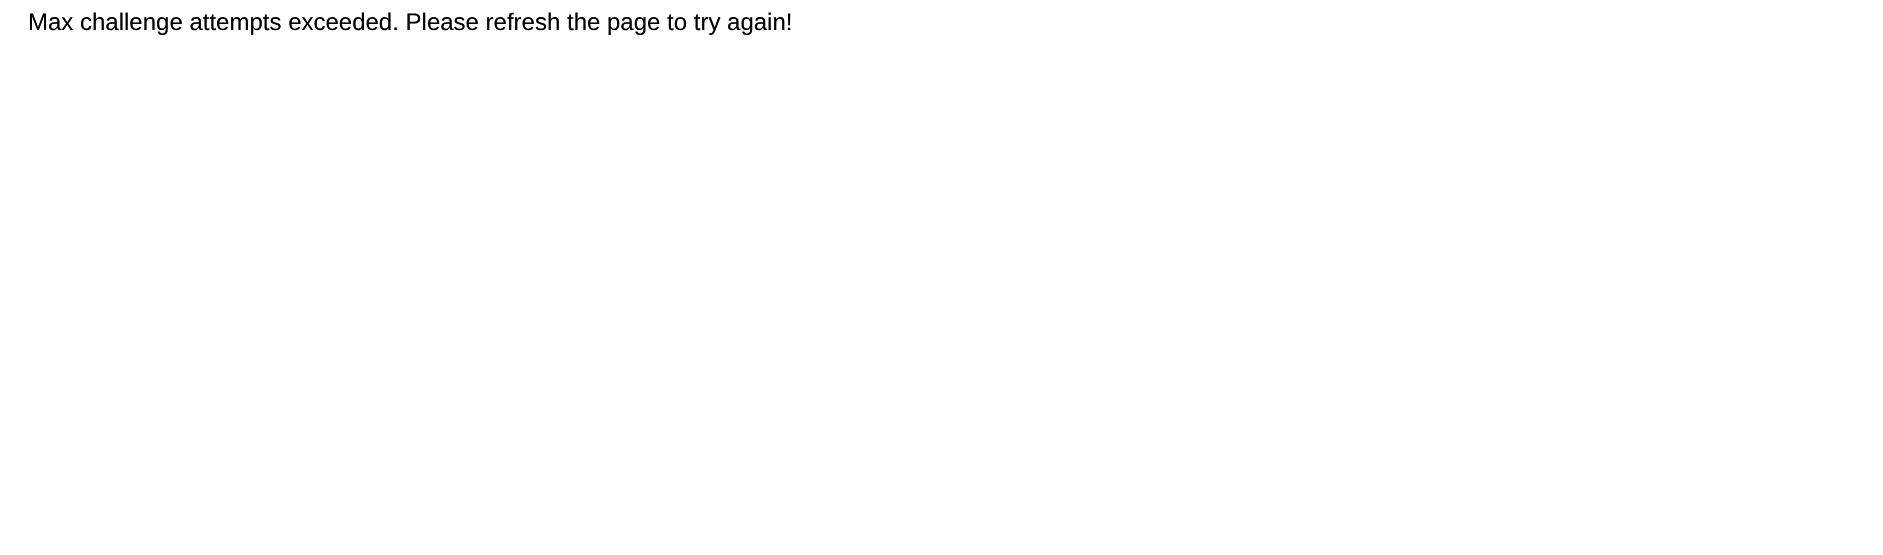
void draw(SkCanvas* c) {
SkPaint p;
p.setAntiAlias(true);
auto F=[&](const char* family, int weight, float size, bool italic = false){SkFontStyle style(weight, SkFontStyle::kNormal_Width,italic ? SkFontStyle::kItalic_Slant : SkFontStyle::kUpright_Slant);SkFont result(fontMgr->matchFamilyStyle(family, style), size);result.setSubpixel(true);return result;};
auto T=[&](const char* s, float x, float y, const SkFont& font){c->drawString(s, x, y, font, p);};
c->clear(0xffffffff);
auto f1 = F("Liberation Sans",400,24);
p.setColor(0xff000000);
T("Max challenge attempts exceeded. Please refresh the page to try again!",28,30,f1);
}
